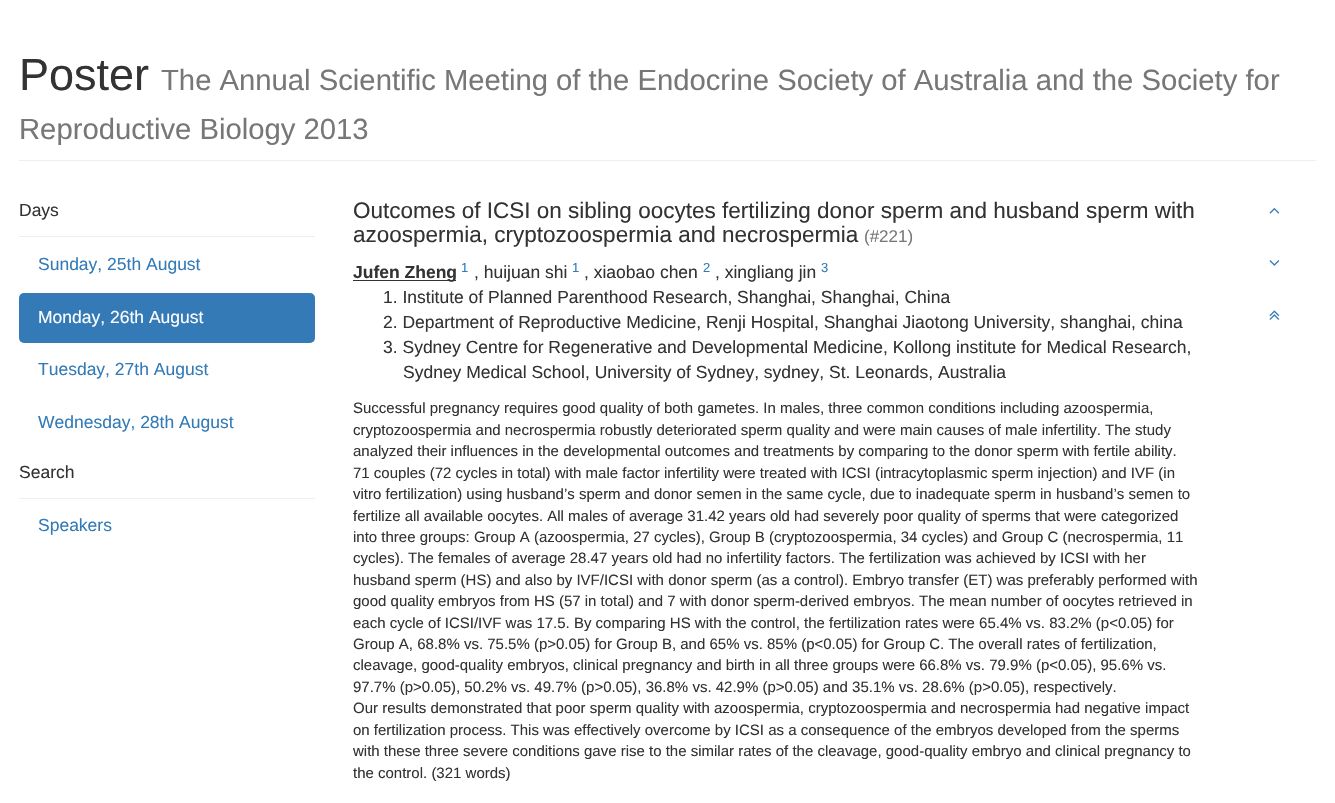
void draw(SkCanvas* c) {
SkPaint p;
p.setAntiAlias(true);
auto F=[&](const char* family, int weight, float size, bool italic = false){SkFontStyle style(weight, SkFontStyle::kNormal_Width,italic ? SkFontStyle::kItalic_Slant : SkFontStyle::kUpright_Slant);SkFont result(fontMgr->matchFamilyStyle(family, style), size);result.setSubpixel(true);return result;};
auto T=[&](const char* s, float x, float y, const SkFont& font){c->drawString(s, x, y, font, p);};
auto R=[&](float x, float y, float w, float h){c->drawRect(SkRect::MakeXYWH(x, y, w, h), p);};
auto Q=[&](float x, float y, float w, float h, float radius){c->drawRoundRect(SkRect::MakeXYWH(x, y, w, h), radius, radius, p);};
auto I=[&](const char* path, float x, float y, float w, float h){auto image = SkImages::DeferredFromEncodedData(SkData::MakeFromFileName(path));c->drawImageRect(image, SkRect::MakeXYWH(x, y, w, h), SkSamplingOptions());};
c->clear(0xffffffff);
p.setColor(0xffeeeeee);
R(19,160,1297,1);
auto f1 = F("Liberation Sans",400,45);
p.setColor(0xff333333);
T("Poster",19,90,f1);
auto f2 = F("Liberation Sans",400,29.25);
p.setColor(0xff777777);
T("The Annual Scientific Meeting of the Endocrine Society of Australia and the Society for",161,90,f2);
T("Reproductive Biology 2013",19,139,f2);
p.setColor(0xffeeeeee);
R(19,236,296,1);
auto f3 = F("Liberation Sans",400,17.5);
p.setColor(0xff333333);
T("Days",19,216,f3);
p.setColor(0xff337ab7);
T("Sunday, 25th August",38,270,f3);
Q(19,293,296,50,5);
p.setColor(0xffffffff);
T("Monday, 26th August",38,323,f3);
p.setColor(0xff337ab7);
T("Tuesday, 27th August",38,375,f3);
T("Wednesday, 28th August",38,428,f3);
p.setColor(0xffeeeeee);
R(19,498,296,1);
p.setColor(0xff333333);
T("Search",19,478,f3);
p.setColor(0xff337ab7);
T("Speakers",38,531,f3);
auto f4 = F("Liberation Sans",400,22.5);
p.setColor(0xff333333);
T("Outcomes of ICSI on sibling oocytes fertilizing donor sperm and husband sperm with",353,218,f4);
T("azoospermia, cryptozoospermia and necrospermia",353,242,f4);
auto f5 = F("Liberation Sans",400,17);
p.setColor(0xff777777);
T("(#221)",864,242,f5);
p.setColor(0xff333333);
R(353,280,103,1);
auto f6 = F("Liberation Sans",700,17.5);
T("Jufen Zheng",353,278,f6);
auto f7 = F("Liberation Sans",400,13);
p.setColor(0xff337ab7);
T("1",461,272,f7);
p.setColor(0xff333333);
T(", huijuan shi",474,278,f3);
p.setColor(0xff337ab7);
T("1",572,272,f7);
p.setColor(0xff333333);
T(", xiaobao chen",584,278,f3);
p.setColor(0xff337ab7);
T("2",703,272,f7);
p.setColor(0xff333333);
T(", xingliang jin",715,278,f3);
p.setColor(0xff337ab7);
T("3",821,272,f7);
p.setColor(0xff333333);
T("1. Institute of Planned Parenthood Research, Shanghai, Shanghai, China",383,303,f3);
T("2. Department of Reproductive Medicine, Renji Hospital, Shanghai Jiaotong University, shanghai, china",383,328,f3);
T("3. Sydney Centre for Regenerative and Developmental Medicine, Kollong institute for Medical Research,",383,353,f3);
T("Sydney Medical School, University of Sydney, sydney, St. Leonards, Australia",403,378,f3);
auto f8 = F("Liberation Sans",400,15);
T("Successful pregnancy requires good quality of both gametes. In males, three common conditions including azoospermia,",353,413,f8);
T("cryptozoospermia and necrospermia robustly deteriorated sperm quality and were main causes of male infertility. The study",353,435,f8);
T("analyzed their influences in the developmental outcomes and treatments by comparing to the donor sperm with fertile ability.",353,456,f8);
T("71 couples (72 cycles in total) with male factor infertility were treated with ICSI (intracytoplasmic sperm injection) and IVF (in",353,478,f8);
T("vitro fertilization) using husband’s sperm and donor semen in the same cycle, due to inadequate sperm in husband’s semen to",353,499,f8);
T("fertilize all available oocytes. All males of average 31.42 years old had severely poor quality of sperms that were categorized",353,521,f8);
T("into three groups: Group A (azoospermia, 27 cycles), Group B (cryptozoospermia, 34 cycles) and Group C (necrospermia, 11",353,542,f8);
T("cycles). The females of average 28.47 years old had no infertility factors. The fertilization was achieved by ICSI with her",353,563,f8);
T("husband sperm (HS) and also by IVF/ICSI with donor sperm (as a control). Embryo transfer (ET) was preferably performed with",353,585,f8);
T("good quality embryos from HS (57 in total) and 7 with donor sperm-derived embryos. The mean number of oocytes retrieved in",353,606,f8);
T("each cycle of ICSI/IVF was 17.5. By comparing HS with the control, the fertilization rates were 65.4% vs. 83.2% (p<0.05) for",353,628,f8);
T("Group A, 68.8% vs. 75.5% (p>0.05) for Group B, and 65% vs. 85% (p<0.05) for Group C. The overall rates of fertilization,",353,649,f8);
T("cleavage, good-quality embryos, clinical pregnancy and birth in all three groups were 66.8% vs. 79.9% (p<0.05), 95.6% vs.",353,670,f8);
T("97.7% (p>0.05), 50.2% vs. 49.7% (p>0.05), 36.8% vs. 42.9% (p>0.05) and 35.1% vs. 28.6% (p>0.05), respectively.",353,692,f8);
T("Our results demonstrated that poor sperm quality with azoospermia, cryptozoospermia and necrospermia had negative impact",353,713,f8);
T("on fertilization process. This was effectively overcome by ICSI as a consequence of the embryos developed from the sperms",353,735,f8);
T("with these three severe conditions gave rise to the similar rates of the cleavage, good-quality embryo and clinical pregnancy to",353,756,f8);
T("the control. (321 words)",353,778,f8);
I("1.png",1269,208,11,6);
I("2.png",1269,260,11,6);
I("3.png",1269,310,11,10);
}
